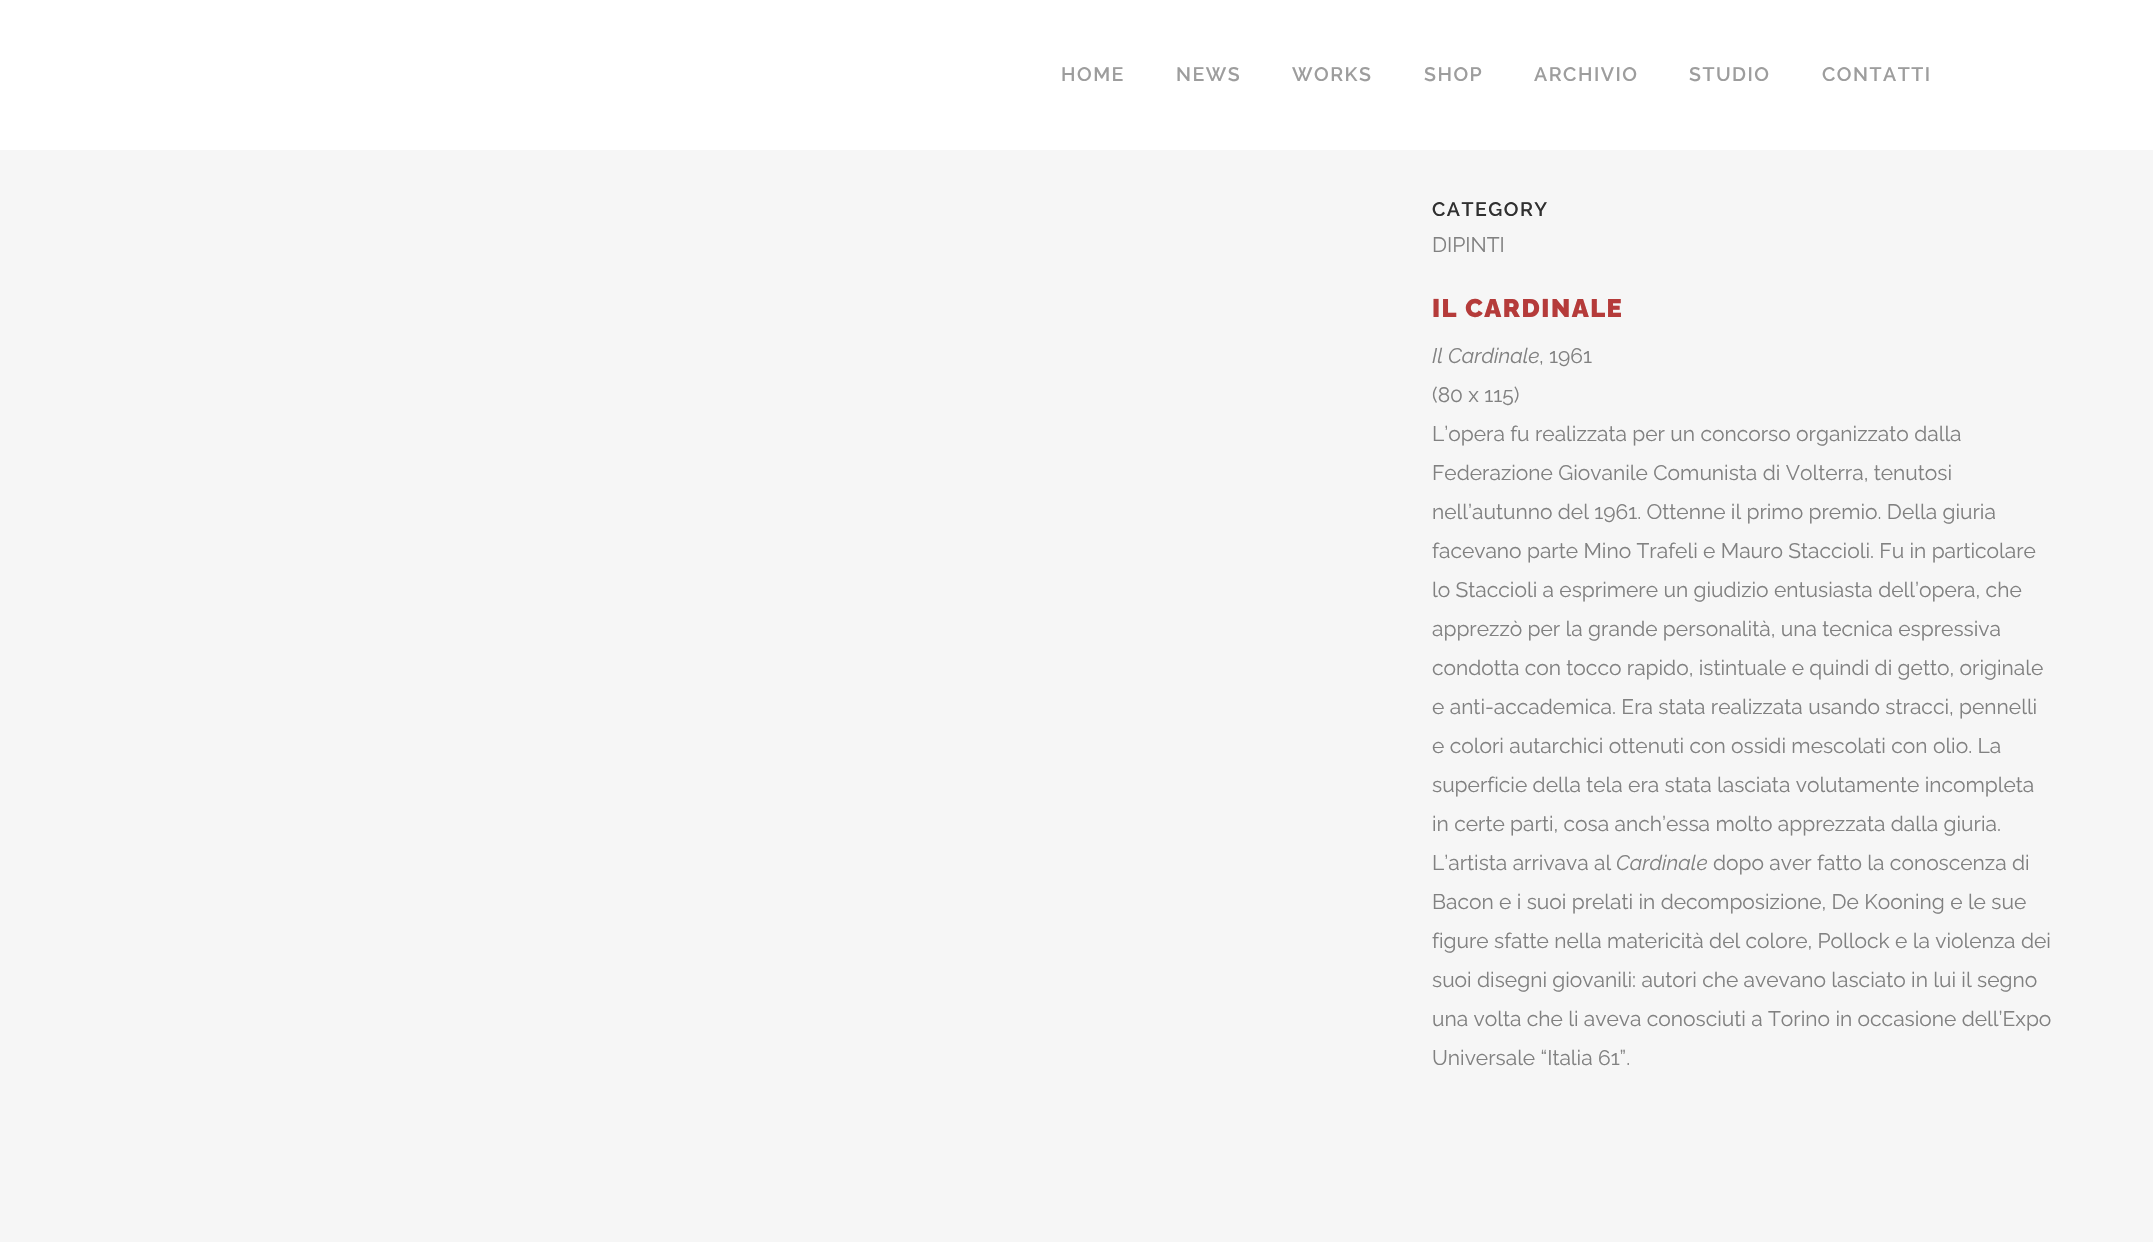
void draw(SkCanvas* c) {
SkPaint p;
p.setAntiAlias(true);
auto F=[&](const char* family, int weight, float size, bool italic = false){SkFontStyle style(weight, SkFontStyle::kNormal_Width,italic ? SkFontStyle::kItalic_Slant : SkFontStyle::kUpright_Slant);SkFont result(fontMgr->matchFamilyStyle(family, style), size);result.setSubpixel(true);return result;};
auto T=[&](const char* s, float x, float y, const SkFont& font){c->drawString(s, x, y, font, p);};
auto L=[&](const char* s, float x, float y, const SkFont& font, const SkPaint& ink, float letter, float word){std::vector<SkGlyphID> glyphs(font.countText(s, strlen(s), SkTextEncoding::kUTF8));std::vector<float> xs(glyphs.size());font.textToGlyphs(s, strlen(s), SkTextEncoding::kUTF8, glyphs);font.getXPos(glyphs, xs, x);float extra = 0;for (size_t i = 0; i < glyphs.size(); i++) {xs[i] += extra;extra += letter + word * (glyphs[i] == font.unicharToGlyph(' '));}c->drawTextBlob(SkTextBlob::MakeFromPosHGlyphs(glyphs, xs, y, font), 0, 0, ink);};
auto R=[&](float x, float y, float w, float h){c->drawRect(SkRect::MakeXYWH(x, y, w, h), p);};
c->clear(0xfff6f6f6);
p.setColor(0xffffffff);
R(0,0,2153,150);
auto f1 = F("Raleway",600,19.5);
p.setColor(0xff9d9d9d);
L("HOME",1061,81,f1,p,1.5,0);
L("NEWS",1176,81,f1,p,1.5,0);
L("WORKS",1292,81,f1,p,1.5,0);
L("SHOP",1424,81,f1,p,1.5,0);
L("ARCHIVIO",1534,81,f1,p,1.5,0);
L("STUDIO",1689,81,f1,p,1.5,0);
L("CONTATTI",1822,81,f1,p,1.5,0);
p.setColor(0xff303030);
L("CATEGORY",1432,216,f1,p,1.5,0);
auto f2 = F("Raleway",400,21);
p.setColor(0xff818181);
T("DIPINTI",1432,252,f2);
auto f3 = F("Raleway",900,25.5);
p.setColor(0xffb53b3a);
L("IL CARDINALE",1432,317,f3,p,1.5,0);
auto f4 = F("Raleway",400,21,true);
p.setColor(0xff818181);
T("Il Cardinale",1432,363,f4);
T(", 1961",1539,363,f2);
T("(80 x 115)",1432,402,f2);
T("L’opera fu realizzata per un concorso organizzato dalla",1432,441,f2);
T("Federazione Giovanile Comunista di Volterra, tenutosi",1432,480,f2);
T("nell’autunno del 1961. Ottenne il primo premio. Della giuria",1432,519,f2);
T("facevano parte Mino Trafeli e Mauro Staccioli. Fu in particolare",1432,558,f2);
T("lo Staccioli a esprimere un giudizio entusiasta dell’opera, che",1432,597,f2);
T("apprezzò per la grande personalità, una tecnica espressiva",1432,636,f2);
T("condotta con tocco rapido, istintuale e quindi di getto, originale",1432,675,f2);
T("e anti-accademica. Era stata realizzata usando stracci, pennelli",1432,714,f2);
T("e colori autarchici ottenuti con ossidi mescolati con olio. La",1432,753,f2);
T("superficie della tela era stata lasciata volutamente incompleta",1432,792,f2);
T("in certe parti, cosa anch’essa molto apprezzata dalla giuria.",1432,831,f2);
T("L’artista arrivava al",1432,870,f2);
T("Cardinale",1616,870,f4);
T("dopo aver fatto la conoscenza di",1713,870,f2);
T("Bacon e i suoi prelati in decomposizione, De Kooning e le sue",1432,909,f2);
T("figure sfatte nella matericità del colore, Pollock e la violenza dei",1432,948,f2);
T("suoi disegni giovanili: autori che avevano lasciato in lui il segno",1432,987,f2);
T("una volta che li aveva conosciuti a Torino in occasione dell’Expo",1432,1026,f2);
T("Universale “Italia 61”.",1432,1065,f2);
}
